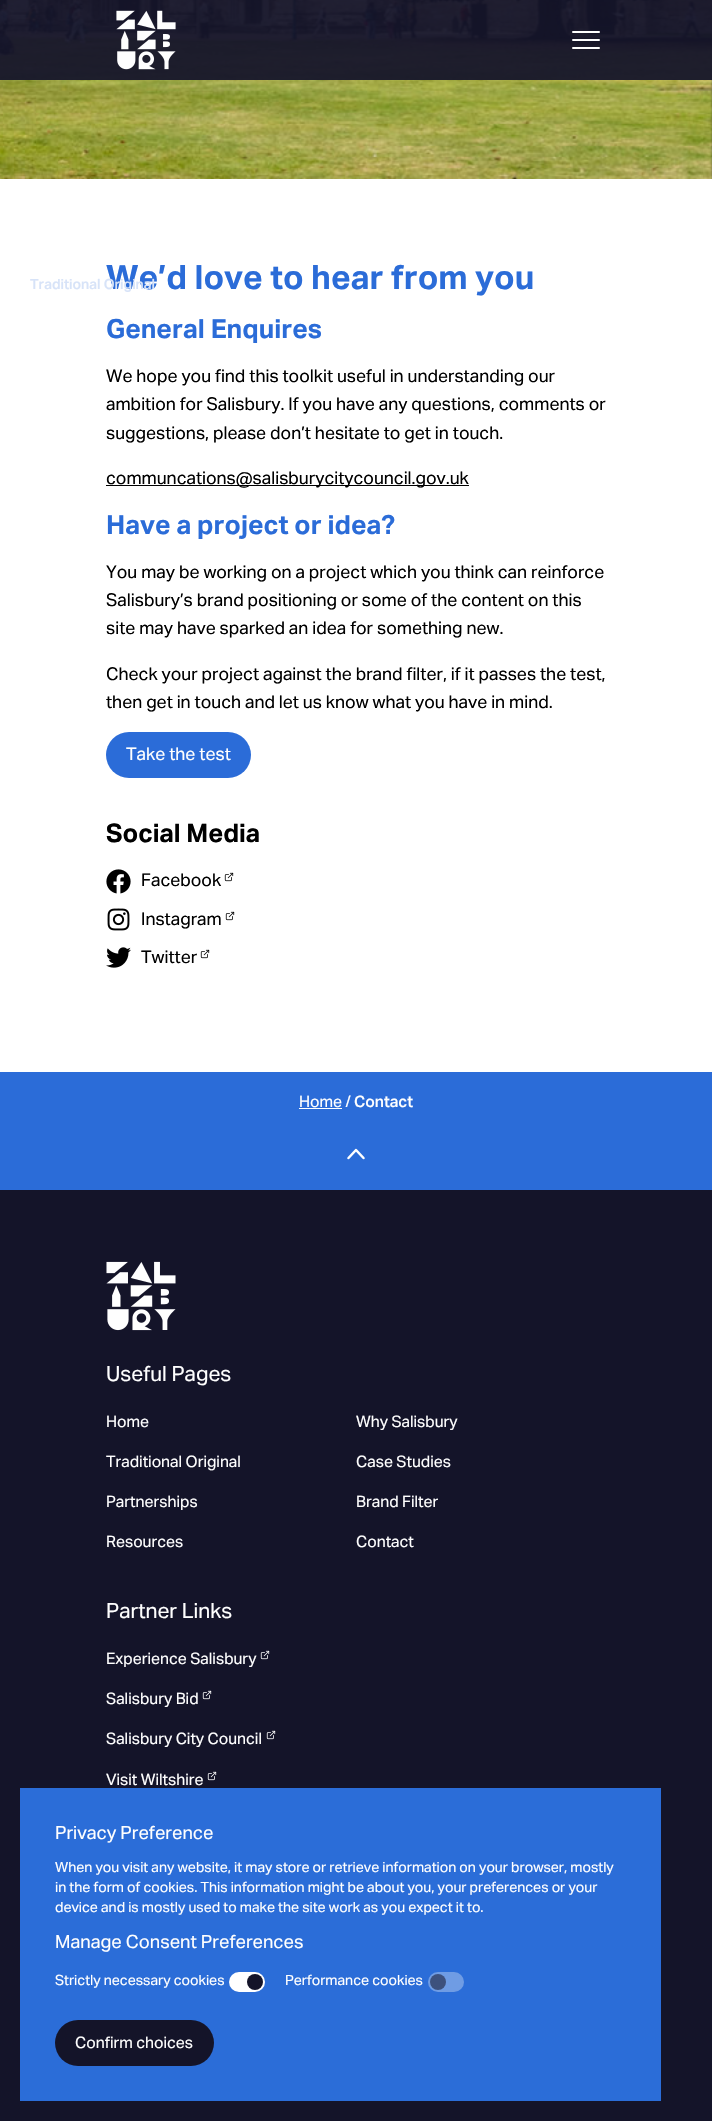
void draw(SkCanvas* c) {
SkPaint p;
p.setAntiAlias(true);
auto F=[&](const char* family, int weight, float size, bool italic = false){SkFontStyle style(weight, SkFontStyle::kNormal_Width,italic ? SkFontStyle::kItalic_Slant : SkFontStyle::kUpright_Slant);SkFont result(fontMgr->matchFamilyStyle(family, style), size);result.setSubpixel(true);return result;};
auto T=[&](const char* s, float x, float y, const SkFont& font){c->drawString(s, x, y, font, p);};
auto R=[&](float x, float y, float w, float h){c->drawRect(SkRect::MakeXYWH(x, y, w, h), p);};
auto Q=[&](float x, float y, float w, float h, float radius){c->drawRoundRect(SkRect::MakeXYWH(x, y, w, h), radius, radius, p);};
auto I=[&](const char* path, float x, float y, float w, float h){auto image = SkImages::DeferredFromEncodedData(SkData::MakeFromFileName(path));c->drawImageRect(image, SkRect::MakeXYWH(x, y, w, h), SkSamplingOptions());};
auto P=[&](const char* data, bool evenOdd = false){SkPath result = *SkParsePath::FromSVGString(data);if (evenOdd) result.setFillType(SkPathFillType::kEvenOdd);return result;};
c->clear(0xff141429);
I("2.png",0,0,712,179);
p.setColor(0xf0141429);
R(0,0,712,80);
I("1.png",116,10,60,60);
p.setColor(0xffffffff);
Q(572,31,28,2,1);
Q(572,39,28,2,1);
Q(572,47,28,2,1);
R(0,179,712,893);
auto f1 = F("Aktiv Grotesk",700,33.5);
p.setColor(0xff2b6cd8);
T("We’d love to hear from you",106,289,f1);
auto f2 = F("Aktiv Grotesk",500,14.1);
p.setColor(0xffd7e3f8);
T("Traditional Original",30,289,f2);
auto f3 = F("Aktiv Grotesk",700,26.4);
p.setColor(0xff2b6cd8);
T("General Enquires",106,338,f3);
auto f4 = F("Aktiv Grotesk",400,17.6);
p.setColor(0xff000000);
T("We hope you find this toolkit useful in understanding our",106,382,f4);
T("ambition for Salisbury. If you have any questions, comments or",106,410,f4);
T("suggestions, please don’t hesitate to get in touch.",106,439,f4);
R(106,485,363,1);
T("communcations@salisburycitycouncil.gov.uk",106,484,f4);
p.setColor(0xff2b6cd8);
T("Have a project or idea?",106,534,f3);
p.setColor(0xff000000);
T("You may be working on a project which you think can reinforce",106,578,f4);
T("Salisbury’s brand positioning or some of the content on this",106,606,f4);
T("site may have sparked an idea for something new.",106,634,f4);
T("Check your project against the brand filter, if it passes the test,",106,680,f4);
T("then get in touch and let us know what you have in mind.",106,708,f4);
p.setColor(0xff2b6cd8);
Q(106,732,145,46,23);
p.setColor(0xffffffff);
T("Take the test",126,760,f4);
auto f5 = F("Aktiv Grotesk",700,25.5);
p.setColor(0xff000000);
T("Social Media",106,842,f5);
I("3.png",106,869,25,25);
T("Facebook",141,886,f4);
I("4.png",224,872,10,10);
I("5.png",107,908,23,23);
T("Instagram",141,925,f4);
I("4.png",225,911,10,10);
I("6.png",106,947,25,21);
T("Twitter",141,963,f4);
I("4.png",200,949,10,10);
p.setColor(0xff2b6cd8);
R(0,1072,712,118);
auto f6 = F("Aktiv Grotesk",400,15.75);
p.setColor(0xffffffff);
T("Home /",299,1107,f6);
R(299,1108,43,1);
auto f7 = F("Aktiv Grotesk",500,15.75);
T("Contact",354,1107,f7);
p.setStroke(true);
p.setStrokeWidth(2.5);
p.setStrokeCap(SkPaint::kRound_Cap);
p.setStrokeJoin(SkPaint::kRound_Join);
c->drawPath(P("M363.5 1158l-7.5-8l-7.5 8"),p);
I("7.png",106,1261,70,70);
auto f8 = F("Aktiv Grotesk",400,21);
p.setStroke(false);
T("Useful Pages",106,1381,f8);
T("Home",106,1427,f6);
T("Why Salisbury",356,1427,f6);
T("Traditional Original",106,1467,f6);
T("Case Studies",356,1467,f6);
T("Partnerships",106,1507,f6);
T("Brand Filter",356,1507,f6);
T("Resources",106,1547,f6);
T("Contact",356,1547,f6);
T("Partner Links",106,1618,f8);
T("Experience Salisbury",106,1664,f6);
I("8.png",260,1650,10,10);
T("Salisbury Bid",106,1704,f6);
I("8.png",202,1690,10,10);
T("Salisbury City Council",106,1744,f6);
I("8.png",266,1730,10,10);
T("Visit Wiltshire",106,1785,f6);
I("8.png",207,1771,10,10);
p.setColor(0xff2b6dd8);
R(20,1788,641,313);
auto f9 = F("Aktiv Grotesk",400,18.25);
p.setColor(0xffffffff);
T("Privacy Preference",55,1839,f9);
auto f10 = F("Aktiv Grotesk",400,14.1);
T("When you visit any website, it may store or retrieve information on your browser, mostly",55,1872,f10);
T("in the form of cookies. This information might be about you, your preferences or your",55,1892,f10);
T("device and is mostly used to make the site work as you expect it to.",55,1912,f10);
T("Manage Consent Preferences",55,1948,f9);
T("Strictly necessary cookies",55,1985,f10);
Q(229,1972,36,20,10);
p.setColor(0xff141429);
c->drawCircle(255,1982,8,p);
p.setColor(0xffffffff);
T("Performance cookies",285,1985,f10);
p.setColor(0xff6f9ce4);
Q(428,1972,36,20,10);
p.setColor(0xff3d517d);
c->drawCircle(438,1982,8,p);
p.setColor(0xff141429);
Q(55,2020,159,46,23);
p.setColor(0xffffffff);
T("Confirm choices",75,2048,f6);
}
